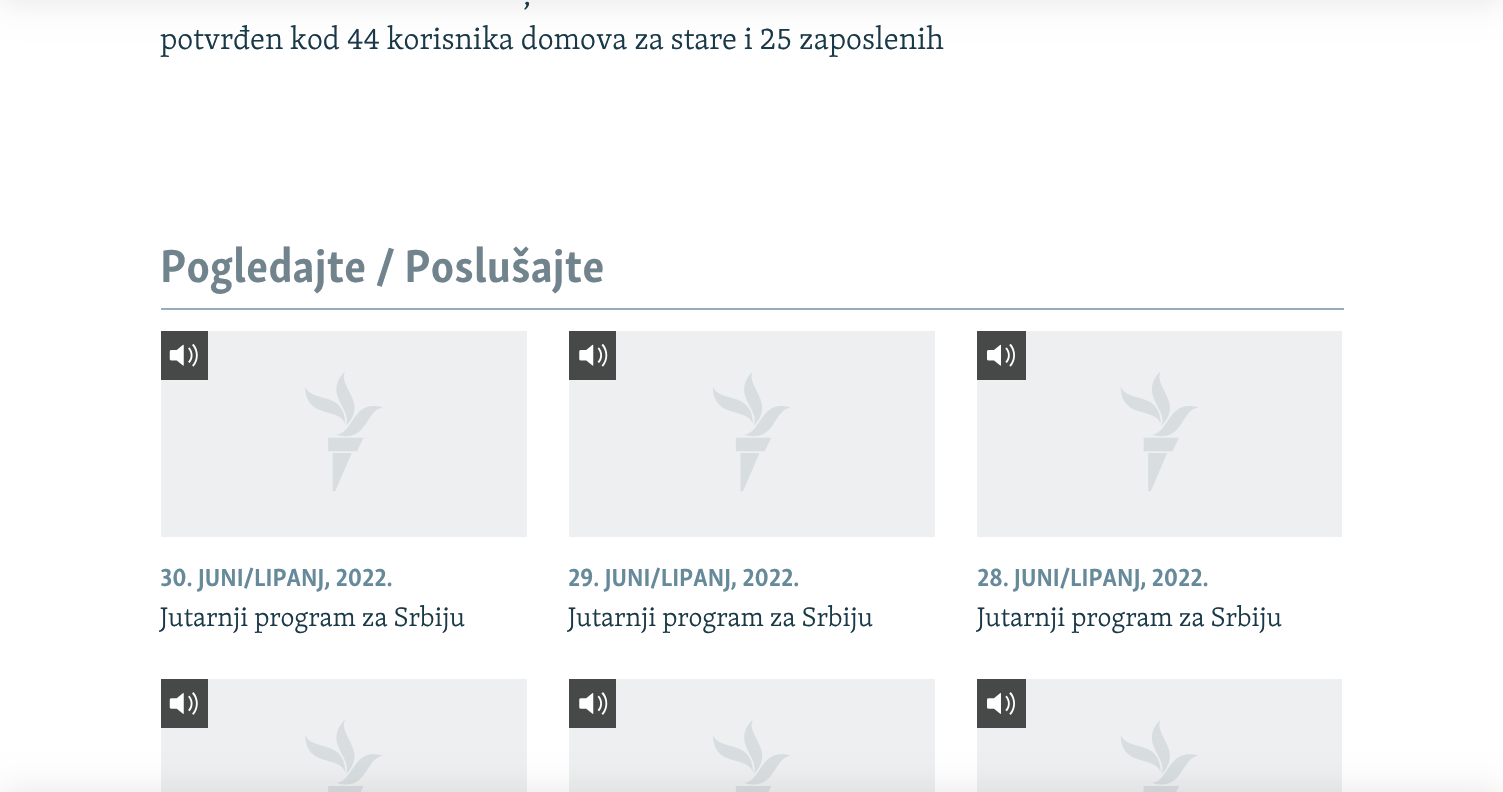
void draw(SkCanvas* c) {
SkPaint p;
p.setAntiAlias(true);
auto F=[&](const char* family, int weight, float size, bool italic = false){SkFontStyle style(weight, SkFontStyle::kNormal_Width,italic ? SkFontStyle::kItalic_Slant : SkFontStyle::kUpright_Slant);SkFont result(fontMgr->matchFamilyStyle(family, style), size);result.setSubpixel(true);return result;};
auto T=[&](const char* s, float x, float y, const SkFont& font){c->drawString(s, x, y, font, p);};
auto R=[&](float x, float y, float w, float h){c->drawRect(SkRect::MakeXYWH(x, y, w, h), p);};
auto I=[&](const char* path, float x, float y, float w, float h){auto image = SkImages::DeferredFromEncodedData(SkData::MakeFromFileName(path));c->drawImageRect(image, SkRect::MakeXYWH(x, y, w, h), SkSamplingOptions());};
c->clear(0xffffffff);
p.setColor(0x1a000000);
p.setMaskFilter(SkMaskFilter::MakeBlur(kNormal_SkBlurStyle, 17.5));
c->drawRect(SkRect::MakeXYWH(0,-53,1503,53),p);
p.setMaskFilter(nullptr);
p.setColor(0xffedeff0);
R(161,679,366,113);
I("7.png",305,720,78,72);
R(569,679,366,113);
I("9.png",713,720,77,72);
R(977,679,365,113);
I("11.png",1120,720,78,72);
p.setColor(0x1a000000);
p.setMaskFilter(SkMaskFilter::MakeBlur(kNormal_SkBlurStyle, 17.5));
c->drawRect(SkRect::MakeXYWH(0,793,1503,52),p);
p.setMaskFilter(nullptr);
auto f1 = F("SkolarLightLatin",300,31.5);
p.setColor(0xff1a3948);
T(",",523,5,f1);
T("potvrđen kod 44 korisnika domova za stare i 25 zaposlenih",160,49,f1);
p.setColor(0xff95adb9);
R(161,308,1183,2);
auto f2 = F("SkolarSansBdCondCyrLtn",700,47.25);
p.setColor(0xff71838d);
T("Pogledajte / Poslušajte",160,282,f2);
p.setColor(0xffedeff0);
R(161,331,366,206);
I("1.png",305,372,78,120);
p.setColor(0xff474848);
R(161,331,47,49);
I("2.png",169,343,29,24);
auto f3 = F("SkolarSansBdCondCyrLtn",700,25.5);
p.setColor(0xff678a9b);
T("30. JUNI/LIPANJ, 2022.",160,586,f3);
auto f4 = F("SkolarLightLatin",300,27.5);
p.setColor(0xff1a3948);
T("Jutarnji program za Srbiju",160,626,f4);
p.setColor(0xffedeff0);
R(569,331,366,206);
I("3.png",713,372,77,120);
p.setColor(0xff474848);
R(569,331,47,49);
I("4.png",579,344,29,23);
p.setColor(0xff678a9b);
T("29. JUNI/LIPANJ, 2022.",568,586,f3);
p.setColor(0xff1a3948);
T("Jutarnji program za Srbiju",568,626,f4);
p.setColor(0xffedeff0);
R(977,331,365,206);
I("5.png",1120,372,78,120);
p.setColor(0xff474848);
R(977,331,49,49);
I("6.png",987,343,28,24);
p.setColor(0xff678a9b);
T("28. JUNI/LIPANJ, 2022.",977,586,f3);
p.setColor(0xff1a3948);
T("Jutarnji program za Srbiju",977,626,f4);
p.setColor(0xff474848);
R(161,679,47,49);
I("8.png",169,692,29,23);
R(569,679,47,49);
I("10.png",579,692,29,23);
R(977,679,49,49);
I("12.png",987,692,28,23);
}
